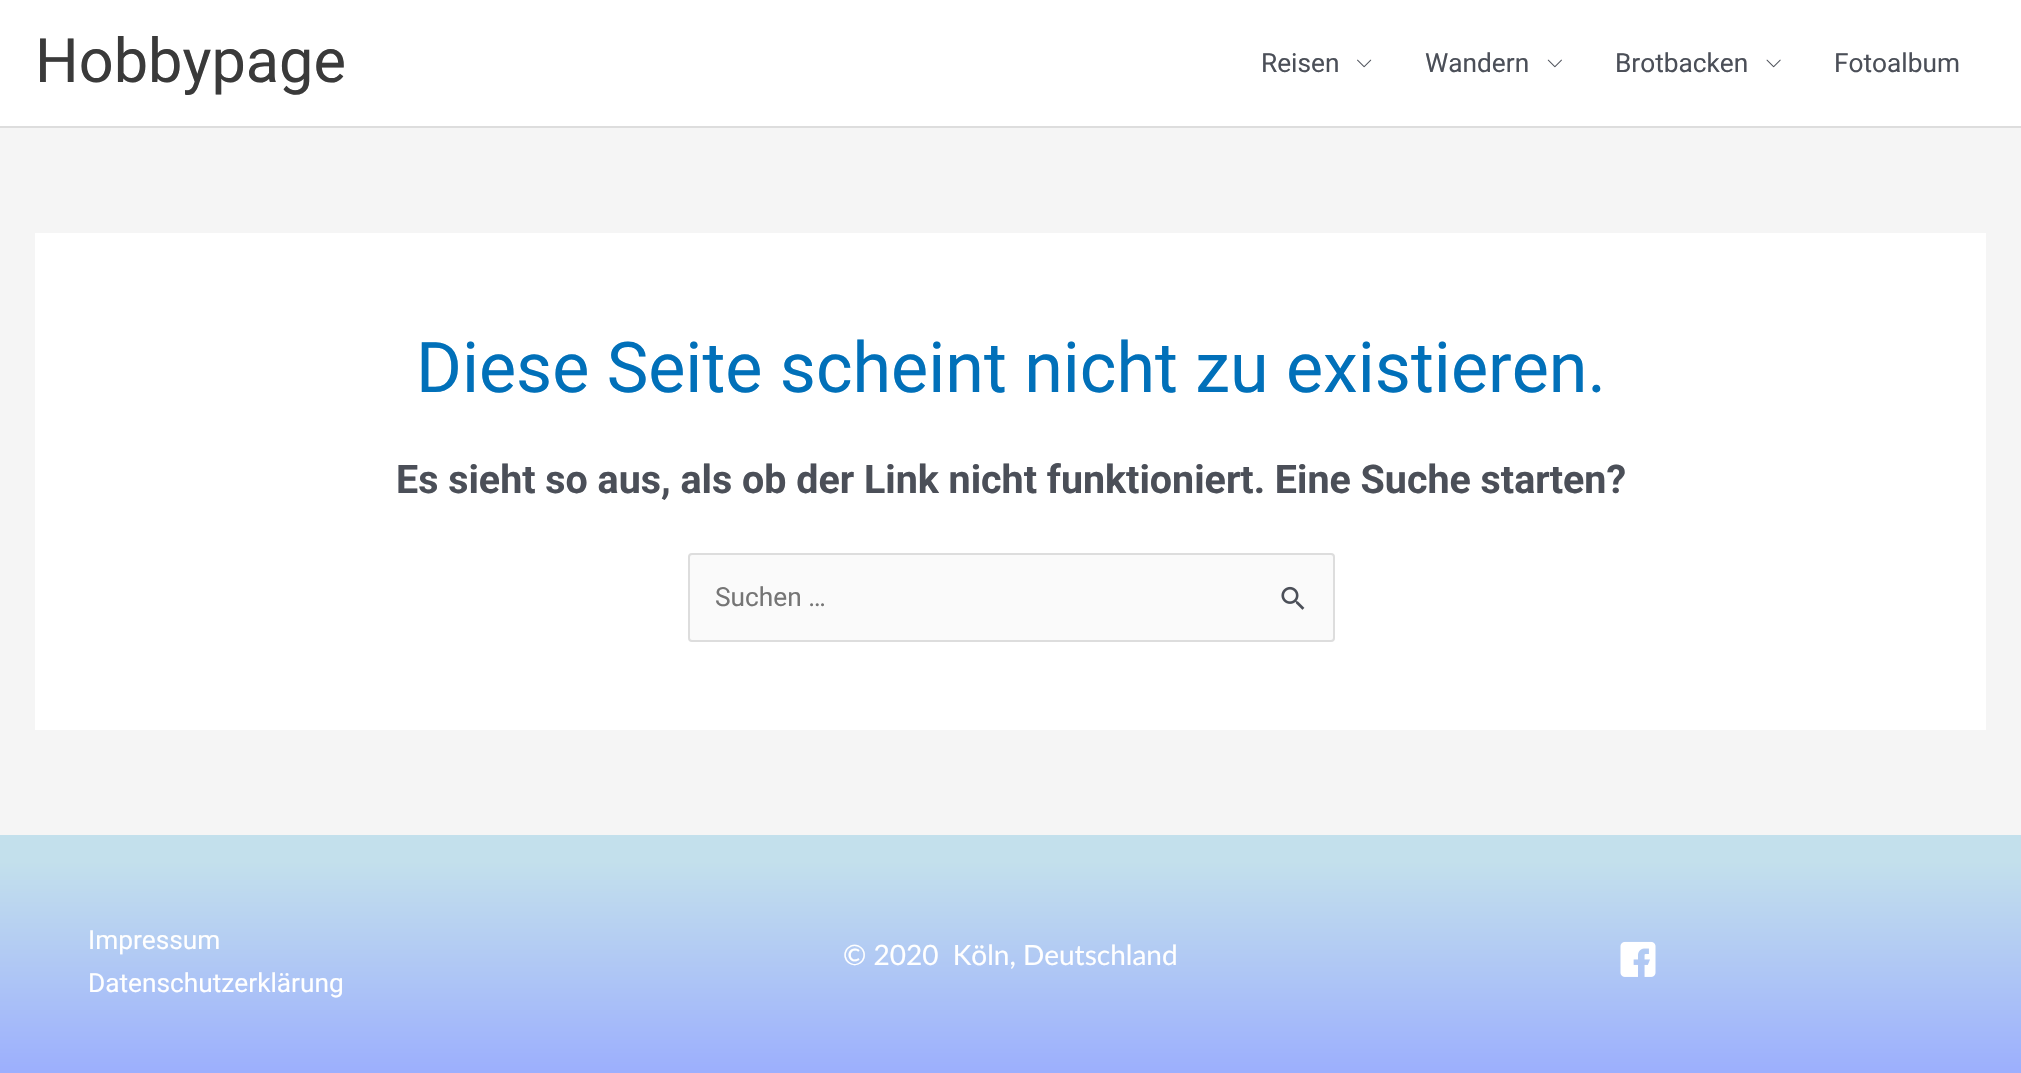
void draw(SkCanvas* c) {
SkPaint p;
p.setAntiAlias(true);
auto F=[&](const char* family, int weight, float size, bool italic = false){SkFontStyle style(weight, SkFontStyle::kNormal_Width,italic ? SkFontStyle::kItalic_Slant : SkFontStyle::kUpright_Slant);SkFont result(fontMgr->matchFamilyStyle(family, style), size);result.setSubpixel(true);return result;};
auto T=[&](const char* s, float x, float y, const SkFont& font){c->drawString(s, x, y, font, p);};
auto R=[&](float x, float y, float w, float h){c->drawRect(SkRect::MakeXYWH(x, y, w, h), p);};
auto I=[&](const char* path, float x, float y, float w, float h){auto image = SkImages::DeferredFromEncodedData(SkData::MakeFromFileName(path));c->drawImageRect(image, SkRect::MakeXYWH(x, y, w, h), SkSamplingOptions());};
c->clear(0xfff5f5f5);
p.setColor(0xffffffff);
R(0,0,2021,126);
p.setColor(0xffdddddd);
R(0,126,2021,2);
auto f1 = F("Roboto",400,61.25);
p.setColor(0xff3a3a3a);
T("Hobbypage",35,82,f1);
auto f2 = F("Roboto",400,26.25);
p.setColor(0xff4b4f58);
T("Reisen",1261,72,f2);
I("1.png",1357,59,15,9);
T("Wandern",1425,72,f2);
I("2.png",1547,59,15,9);
T("Brotbacken",1615,72,f2);
I("3.png",1766,59,15,9);
T("Fotoalbum",1834,72,f2);
p.setColor(0xffffffff);
R(35,233,1951,497);
auto f3 = F("Roboto",400,70);
p.setColor(0xff0170b9);
T("Diese Seite scheint nicht zu existieren.",416,392,f3);
auto f4 = F("Roboto",700,39.4);
p.setColor(0xff4b4f58);
T("Es sieht so aus, als ob der Link nicht funktioniert. Eine Suche starten?",396,493,f4);
p.setColor(0xfffafafa);
c->drawRoundRect(SkRect::MakeXYWH(689,554,645,87),3,3,p);
p.setStroke(true);
p.setStrokeWidth(2);
p.setColor(0xffdddddd);
c->drawRoundRect(SkRect::MakeXYWH(689,554,645,87),3,3,p);
p.setStroke(false);
p.setColor(0xff757575);
T("Suchen …",715,606,f2);
I("4.png",1281,586,24,24);
{
const SkColor colors[] = {0xffc3e0ec,0xff98aaff};
const float stops[] = {.1,1};
const SkPoint ends[] = {{1011,835}, {1011,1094}};
p.setShader(SkGradientShader::MakeLinear(ends, colors, stops, 2, SkTileMode::kClamp));
p.setAlpha(255);
}
R(0,835,2021,238);
p.setShader(nullptr);
p.setColor(0xffffffff);
T("Impressum",88,949,f2);
T("Datenschutzerklärung",88,992,f2);
auto f5 = F("Lato",400,28);
T("© 2020  Köln, Deutschland",843,965,f5);
I("5.png",1620,941,36,36);
}
